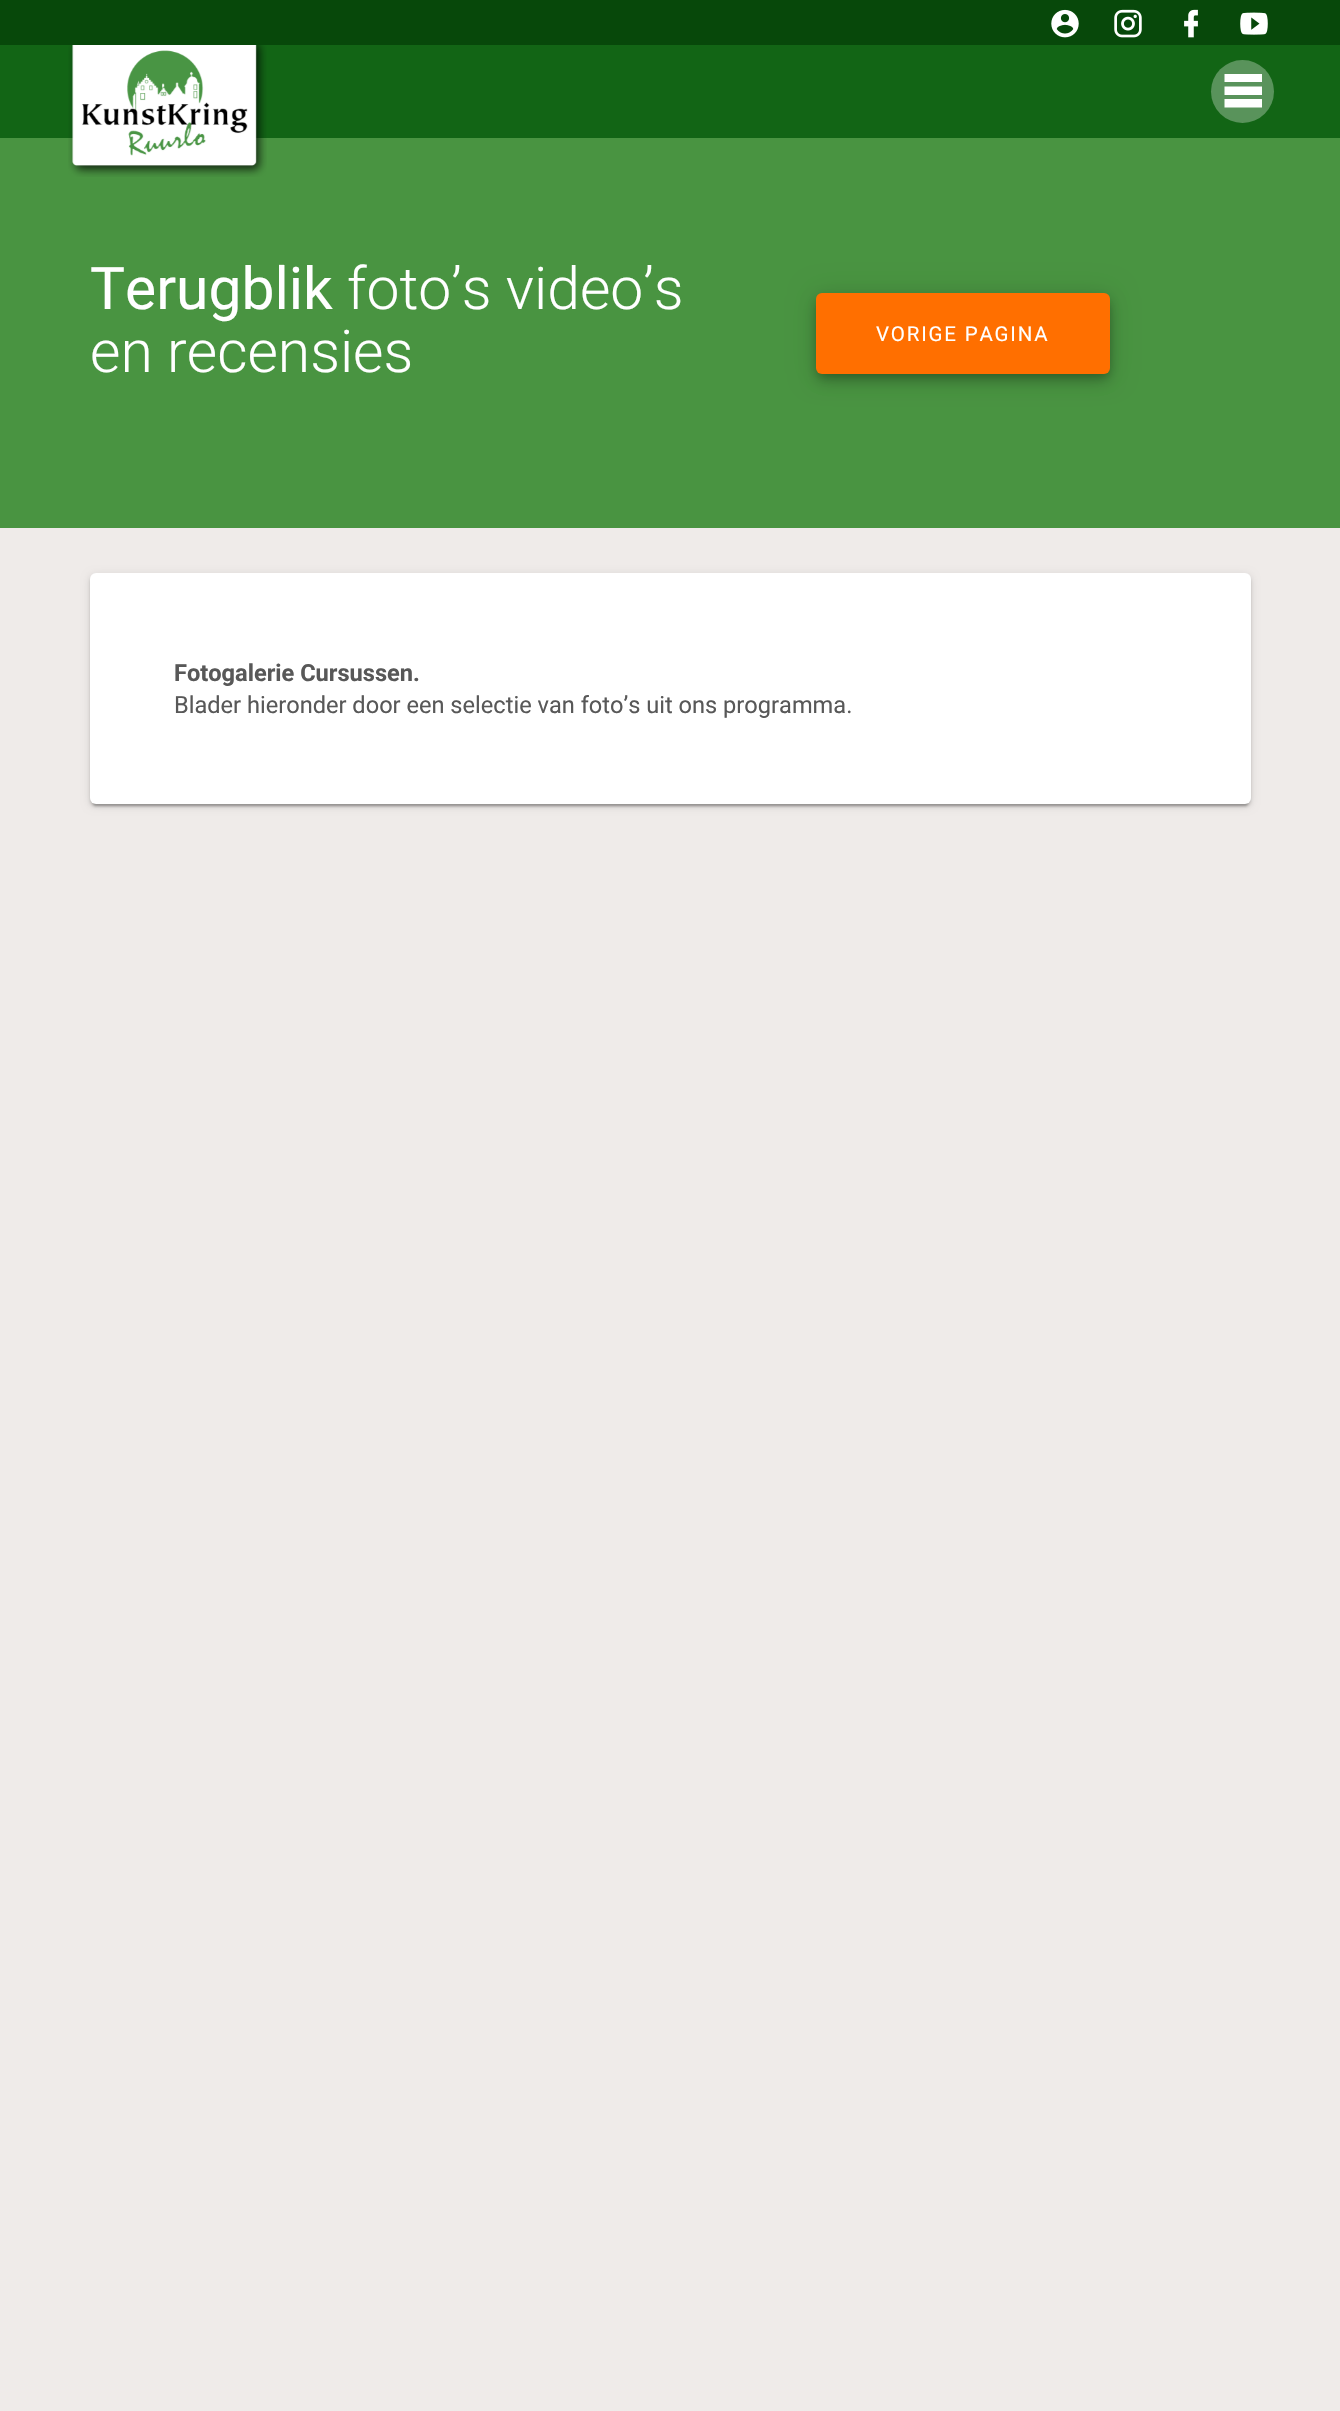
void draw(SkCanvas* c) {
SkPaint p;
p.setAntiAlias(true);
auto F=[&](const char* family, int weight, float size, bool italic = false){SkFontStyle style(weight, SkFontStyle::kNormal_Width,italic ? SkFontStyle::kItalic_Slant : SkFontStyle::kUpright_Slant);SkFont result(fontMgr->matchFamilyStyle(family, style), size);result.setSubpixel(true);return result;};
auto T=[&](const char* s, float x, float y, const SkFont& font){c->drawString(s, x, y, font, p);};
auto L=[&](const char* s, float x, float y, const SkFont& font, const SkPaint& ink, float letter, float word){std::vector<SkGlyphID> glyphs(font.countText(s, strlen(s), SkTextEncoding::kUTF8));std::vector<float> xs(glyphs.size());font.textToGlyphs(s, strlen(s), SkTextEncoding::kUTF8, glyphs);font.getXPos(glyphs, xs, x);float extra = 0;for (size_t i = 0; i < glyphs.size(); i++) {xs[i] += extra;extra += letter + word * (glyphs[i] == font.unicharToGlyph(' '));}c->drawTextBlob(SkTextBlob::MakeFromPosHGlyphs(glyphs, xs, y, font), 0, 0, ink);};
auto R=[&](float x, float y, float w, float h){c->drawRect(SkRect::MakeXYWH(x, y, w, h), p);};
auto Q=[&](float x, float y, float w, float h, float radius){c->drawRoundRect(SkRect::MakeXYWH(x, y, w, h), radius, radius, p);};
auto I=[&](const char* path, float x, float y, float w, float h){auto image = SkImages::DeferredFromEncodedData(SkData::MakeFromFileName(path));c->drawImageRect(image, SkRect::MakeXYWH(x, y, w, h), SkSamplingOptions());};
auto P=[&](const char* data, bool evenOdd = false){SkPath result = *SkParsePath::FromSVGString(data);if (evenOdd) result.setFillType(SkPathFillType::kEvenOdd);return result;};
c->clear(0xff07480a);
I("1.png",1051,9,28,29);
I("2.png",1114,9,28,29);
I("3.png",1184,9,14,29);
I("4.png",1240,12,28,23);
p.setColor(0xff126515);
R(0,45,1340,93);
p.setColor(0xff499441);
R(0,138,1340,390);
I("5.png",68,45,199,132);
p.setColor(0xff59935b);
c->drawCircle(1242.5,91.5,31.5,p);
p.setColor(0xffffffff);
c->drawPath(P("M1224.5 74h37.5v8h-37.5zm0 12.5h37.5v8.5h-37.5zm0 12.5h37.5v8.5h-37.5z"),p);
auto f1 = F("Roboto",400,58.75);
T("Terugblik",90,309,f1);
auto f2 = F("Roboto",300,58.75);
T("foto’s video’s",347,309,f2);
T("en recensies",90,372,f2);
p.setColor(0x1f000000);
p.setMaskFilter(SkMaskFilter::MakeBlur(kNormal_SkBlurStyle, 13.5));
c->drawRoundRect(SkRect::MakeXYWH(816,294,294,81),6,6,p);
p.setMaskFilter(nullptr);
p.setColor(0x24000000);
p.setMaskFilter(SkMaskFilter::MakeBlur(kNormal_SkBlurStyle, 7.5));
c->drawRoundRect(SkRect::MakeXYWH(816,302,294,81),6,6,p);
p.setMaskFilter(nullptr);
p.setColor(0x33000000);
p.setMaskFilter(SkMaskFilter::MakeBlur(kNormal_SkBlurStyle, 4));
c->drawRoundRect(SkRect::MakeXYWH(818,299,291,78),5,5,p);
p.setMaskFilter(nullptr);
p.setColor(0xffff6f00);
Q(816,293,294,81,6);
auto f3 = F("Roboto",400,20.5);
p.setColor(0xffffffff);
L("VORIGE PAGINA",876,341,f3,p,1.8,0);
p.setColor(0xffefebe9);
R(0,528,1340,1883);
p.setColor(0x1f000000);
p.setMaskFilter(SkMaskFilter::MakeBlur(kNormal_SkBlurStyle, 4));
c->drawRoundRect(SkRect::MakeXYWH(90,575,1161,231),6,6,p);
p.setMaskFilter(nullptr);
p.setColor(0x24000000);
p.setMaskFilter(SkMaskFilter::MakeBlur(kNormal_SkBlurStyle, 1.5));
c->drawRoundRect(SkRect::MakeXYWH(90,576,1161,231),6,6,p);
p.setMaskFilter(nullptr);
p.setColor(0x33000000);
p.setMaskFilter(SkMaskFilter::MakeBlur(kNormal_SkBlurStyle, 1));
c->drawRoundRect(SkRect::MakeXYWH(93,581,1155,225),3,3,p);
p.setMaskFilter(nullptr);
p.setColor(0xffffffff);
Q(90,573,1161,231,6);
auto f4 = F("Roboto",700,23.6);
p.setColor(0xff585858);
T("Fotogalerie Cursussen.",174,681,f4);
auto f5 = F("Roboto",400,23.6);
T("Blader hieronder door een selectie van foto’s uit ons programma.",174,713,f5);
}
